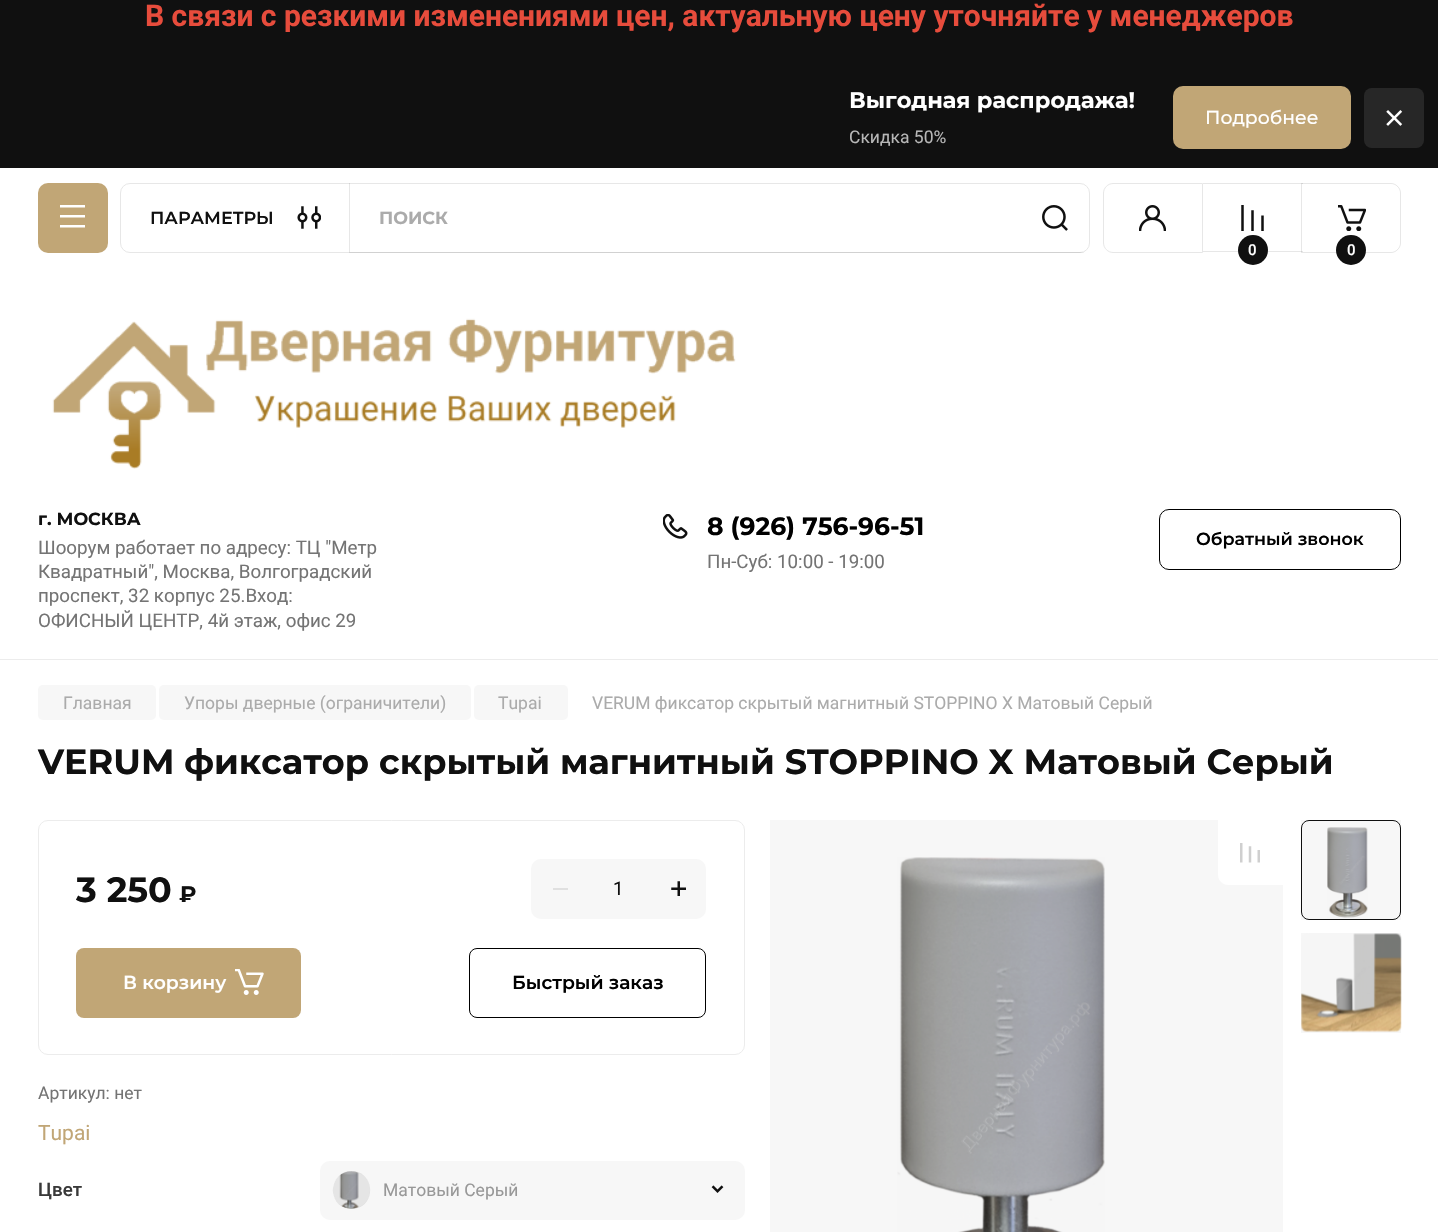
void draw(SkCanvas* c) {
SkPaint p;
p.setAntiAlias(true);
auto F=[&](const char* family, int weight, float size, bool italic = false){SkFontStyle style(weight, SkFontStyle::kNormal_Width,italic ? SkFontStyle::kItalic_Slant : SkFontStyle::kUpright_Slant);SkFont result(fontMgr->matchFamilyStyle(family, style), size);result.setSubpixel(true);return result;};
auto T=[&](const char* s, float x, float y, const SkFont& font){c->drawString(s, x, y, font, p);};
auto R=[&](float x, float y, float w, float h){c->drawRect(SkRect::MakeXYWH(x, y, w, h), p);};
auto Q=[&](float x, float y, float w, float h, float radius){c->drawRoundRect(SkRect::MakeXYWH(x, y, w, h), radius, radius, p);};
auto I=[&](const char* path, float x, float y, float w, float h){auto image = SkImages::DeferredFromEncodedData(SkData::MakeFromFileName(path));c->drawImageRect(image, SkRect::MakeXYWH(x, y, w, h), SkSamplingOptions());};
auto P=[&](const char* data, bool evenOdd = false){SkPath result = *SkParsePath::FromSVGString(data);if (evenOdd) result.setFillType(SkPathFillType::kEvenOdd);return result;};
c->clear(0xff101010);
auto f1 = F("Roboto",700,30);
p.setColor(0xffe74c3c);
T("В связи с резкими изменениями цен, актуальную цену уточняйте у менеджеров",145,26,f1);
auto f2 = F("Montserrat",700,22.5);
p.setColor(0xffffffff);
T("Выгодная распродажа!",849,108,f2);
auto f3 = F("Roboto",400,17.5);
p.setColor(0xffb7b7b7);
T("Скидка 50%",849,143,f3);
p.setColor(0xffc1a676);
Q(1173,86,178,63,10);
auto f4 = F("Montserrat",500,18.75);
p.setColor(0xffffffff);
T("Подробнее",1205,124,f4);
p.setColor(0xff272727);
Q(1364,88,60,60,8);
I("1.png",1386,110,17,16);
p.setColor(0xffffffff);
R(0,168,1438,1064);
p.setColor(0xffc1a676);
Q(38,183,70,70,10);
I("2.png",60,205,25,23);
p.setStroke(true);
p.setStrokeWidth(1);
p.setColor(0xffe7e7e7);
c->drawRoundRect(SkRect::MakeXYWH(120.5,183.5,969,69),9.5,9.5,p);
auto f5 = F("Montserrat",600,17.5);
p.setStroke(false);
p.setColor(0xff101010);
T("ПАРАМЕТРЫ",150,224,f5);
I("3.png",297,206,24,23);
p.setColor(0x1a101010);
c->drawPath(P("M349 183v70h731c2 0 5-1 6-2c-1 1-3 1-5 1h-731v-69z"),p);
auto f6 = F("Montserrat",700,17.5);
p.setColor(0xffababab);
T("ПОИСК",379,224,f6);
I("4.png",1042,205,26,26);
p.setStroke(true);
p.setColor(0xffe7e7e7);
c->drawPath(P("M1113 183.5h89.5v69h-89.5c-5 0-9.5-4.5-9.5-9.5v-50c0-5 4.5-9.5 9.5-9.5z"),p);
I("5.png",1139,205,27,26);
p.setStroke(false);
R(1203,183,100,1);
R(1203,251,100,1);
I("6.png",1241,205,23,26);
p.setColor(0xff101010);
c->drawCircle(1253,250,15,p);
auto f7 = F("Roboto",500,15);
p.setColor(0xffffffff);
T("0",1248,255,f7);
p.setStroke(true);
p.setColor(0x1a101010);
c->drawPath(P("M1301.5 183.5h89.5c5 0 9.5 4.5 9.5 9.5v50c0 5-4.5 9.5-9.5 9.5h-89.5z"),p);
I("7.png",1338,205,28,26);
p.setStroke(false);
p.setColor(0xff101010);
c->drawCircle(1351,250,15,p);
p.setColor(0xffffffff);
T("0",1347,255,f7);
p.setColor(0xffececec);
R(0,659,1438,1);
I("8.png",52,318,684,151);
p.setColor(0xff101010);
T("г. МОСКВА",38,525,f6);
auto f8 = F("Roboto",400,18.75);
p.setColor(0xff747474);
T("Шоорум работает по адресу: ТЦ \"Метр",38,554,f8);
T("Квадратный\", Москва, Волгоградский",38,578,f8);
T("проспект, 32 корпус 25.Вход:",38,602,f8);
T("ОФИСНЫЙ ЦЕНТР, 4й этаж, офис 29",38,627,f8);
I("9.png",663,514,25,25);
auto f9 = F("Montserrat",700,25);
p.setColor(0xff000000);
T("8 (926) 756-96-51",707,535,f9);
p.setColor(0xff747474);
T("Пн-Суб: 10:00 - 19:00",707,568,f8);
p.setStroke(true);
p.setColor(0xff000000);
c->drawRoundRect(SkRect::MakeXYWH(1159.5,509.5,241,60),9.5,9.5,p);
p.setStroke(false);
T("Обратный звонок",1196,545,f5);
p.setColor(0xfff7f7f7);
Q(38,685,118,35,5);
p.setColor(0xffababab);
T("Главная",63,709,f3);
p.setColor(0xfff7f7f7);
Q(159,685,312,35,5);
p.setColor(0xffababab);
T("Упоры дверные (ограничители)",184,709,f3);
p.setColor(0xfff7f7f7);
Q(474,685,94,35,5);
p.setColor(0xffababab);
T("Tupai",498,709,f3);
T("VERUM фиксатор скрытый магнитный STOPPINO X Матовый Серый",592,709,f3);
auto f10 = F("Montserrat",700,35);
p.setColor(0xff101010);
T("VERUM фиксатор скрытый магнитный STOPPINO X Матовый Серый",38,774,f10);
p.setStroke(true);
p.setColor(0xffececec);
c->drawRoundRect(SkRect::MakeXYWH(38.5,820.5,706,234),9.5,9.5,p);
p.setStroke(false);
p.setColor(0xff101010);
T("3 250",76,902,f10);
T("₽",179,902,f2);
p.setColor(0xfff7f7f7);
Q(531,859,175,60,10);
p.setColor(0xffe0e0e0);
R(553,888,15,2);
p.setColor(0xff101010);
T("1",613,895,f8);
I("10.png",671,881,15,15);
p.setColor(0xffc1a676);
Q(76,948,225,70,8);
auto f11 = F("Montserrat",600,18.75);
p.setColor(0xffffffff);
T("В корзину",123,989,f11);
I("11.png",235,969,29,26);
p.setStroke(true);
p.setColor(0xff000000);
c->drawRoundRect(SkRect::MakeXYWH(469.5,948.5,236,69),7.5,7.5,p);
p.setStroke(false);
T("Быстрый заказ",512,989,f11);
p.setColor(0xff747474);
T("Артикул: нет",38,1099,f3);
auto f12 = F("Roboto",400,21);
p.setColor(0xffc1a676);
T("Tupai",38,1140,f12);
auto f13 = F("Roboto",500,18.75);
p.setColor(0xff393939);
T("Цвет",38,1196,f13);
p.setColor(0xfff7f7f7);
Q(320,1161,425,59,10);
I("12.png",711,1185,13,8);
I("13.png",333,1171,37,38);
p.setColor(0x1a000000);
c->drawPath(P("M351.5 1171c18.5 0 25.5 24.5 10.5 35c-3 2-7 3-10.5 3c-3.5 0-7.5-1-10.5-3c-15-10.5-8-35 10.5-35z"),p);
p.setColor(0xff989898);
T("Матовый Серый",383,1196,f3);
I("14.png",897,857,208,375);
p.setColor(0x08000000);
R(770,820,513,412);
p.setColor(0xffffffff);
c->drawPath(P("M1218 820h65v65h-55c-5.5 0-10-4.5-10-10z"),p);
I("15.png",1240,843,20,20);
I("16.png",1327,827,41,91);
p.setStroke(true);
p.setColor(0xff101010);
c->drawRoundRect(SkRect::MakeXYWH(1301.5,820.5,99,99),7.5,7.5,p);
p.setStroke(false);
p.setColor(0x08000000);
R(1301,820,100,100);
I("17.png",1301,933,101,99);
R(1301,933,100,100);
}
